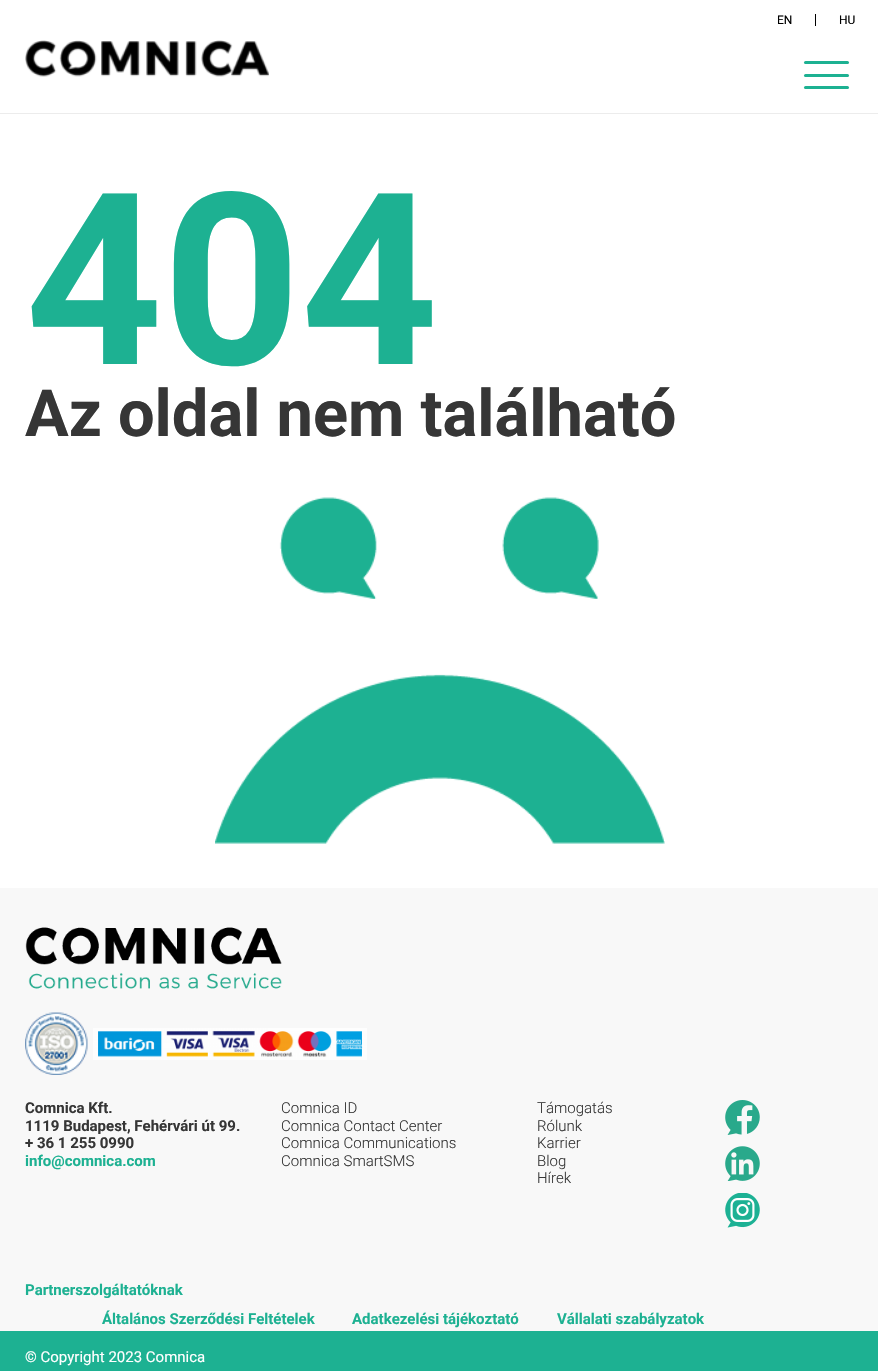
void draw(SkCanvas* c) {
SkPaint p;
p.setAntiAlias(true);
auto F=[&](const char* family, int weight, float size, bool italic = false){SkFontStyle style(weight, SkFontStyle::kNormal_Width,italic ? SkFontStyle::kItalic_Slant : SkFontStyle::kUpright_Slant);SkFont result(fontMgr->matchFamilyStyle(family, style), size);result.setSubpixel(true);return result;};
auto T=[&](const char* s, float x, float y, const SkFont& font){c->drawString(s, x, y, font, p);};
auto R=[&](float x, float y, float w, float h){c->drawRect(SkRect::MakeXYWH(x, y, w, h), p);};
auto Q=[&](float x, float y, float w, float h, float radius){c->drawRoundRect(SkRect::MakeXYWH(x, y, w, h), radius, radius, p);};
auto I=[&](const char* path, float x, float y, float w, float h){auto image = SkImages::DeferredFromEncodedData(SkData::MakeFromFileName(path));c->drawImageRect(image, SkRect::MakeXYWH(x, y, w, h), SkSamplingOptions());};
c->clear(0xffffffff);
p.setColor(0xffececec);
R(0,113,878,1);
p.setColor(0xff000000);
R(815,14,1,12);
auto f1 = F("Roboto",400,12);
T("EN",777,24,f1);
T("HU",839,24,f1);
I("1.png",25,40,244,37);
p.setColor(0xff1db192);
Q(804,74,45,3,1.5);
Q(804,61,45,3,1.5);
Q(804,86,45,3,1.5);
auto f2 = F("Roboto",700,240);
T("404",25,364,f2);
auto f3 = F("Roboto",700,65);
p.setColor(0xff363636);
T("Az oldal nem található",25,436,f3);
I("2.png",215,497,450,347);
p.setColor(0xfff8f8f8);
R(0,888,878,443);
I("3.png",25,927,257,62);
I("4.png",25,1012,63,63);
I("5.png",93,1028,274,32);
auto f4 = F("Roboto",700,15);
p.setColor(0xff363636);
T("Comnica Kft.",25,1113,f4);
T("1119 Budapest, Fehérvári út 99.",25,1131,f4);
T("+ 36 1 255 0990",25,1148,f4);
p.setColor(0xff1db192);
T("info@comnica.com",25,1166,f4);
auto f5 = F("Roboto",300,15);
p.setColor(0xff363636);
T("Comnica ID",281,1113,f5);
T("Comnica Contact Center",281,1131,f5);
T("Comnica Communications",281,1148,f5);
T("Comnica SmartSMS",281,1166,f5);
T("Támogatás",537,1113,f5);
T("Rólunk",537,1131,f5);
T("Karrier",537,1148,f5);
T("Blog",537,1166,f5);
T("Hírek",537,1183,f5);
I("6.png",725,1100,35,35);
I("7.png",725,1146,35,35);
I("8.png",725,1193,35,35);
p.setColor(0xff1db192);
T("Partnerszolgáltatóknak",25,1295,f4);
T("Általános Szerződési Feltételek",102,1324,f4);
T("Adatkezelési tájékoztató",352,1324,f4);
T("Vállalati szabályzatok",557,1324,f4);
R(0,1331,878,40);
auto f6 = F("Roboto",400,15);
p.setColor(0xffffffff);
T("© Copyright 2023 Comnica",25,1362,f6);
}
